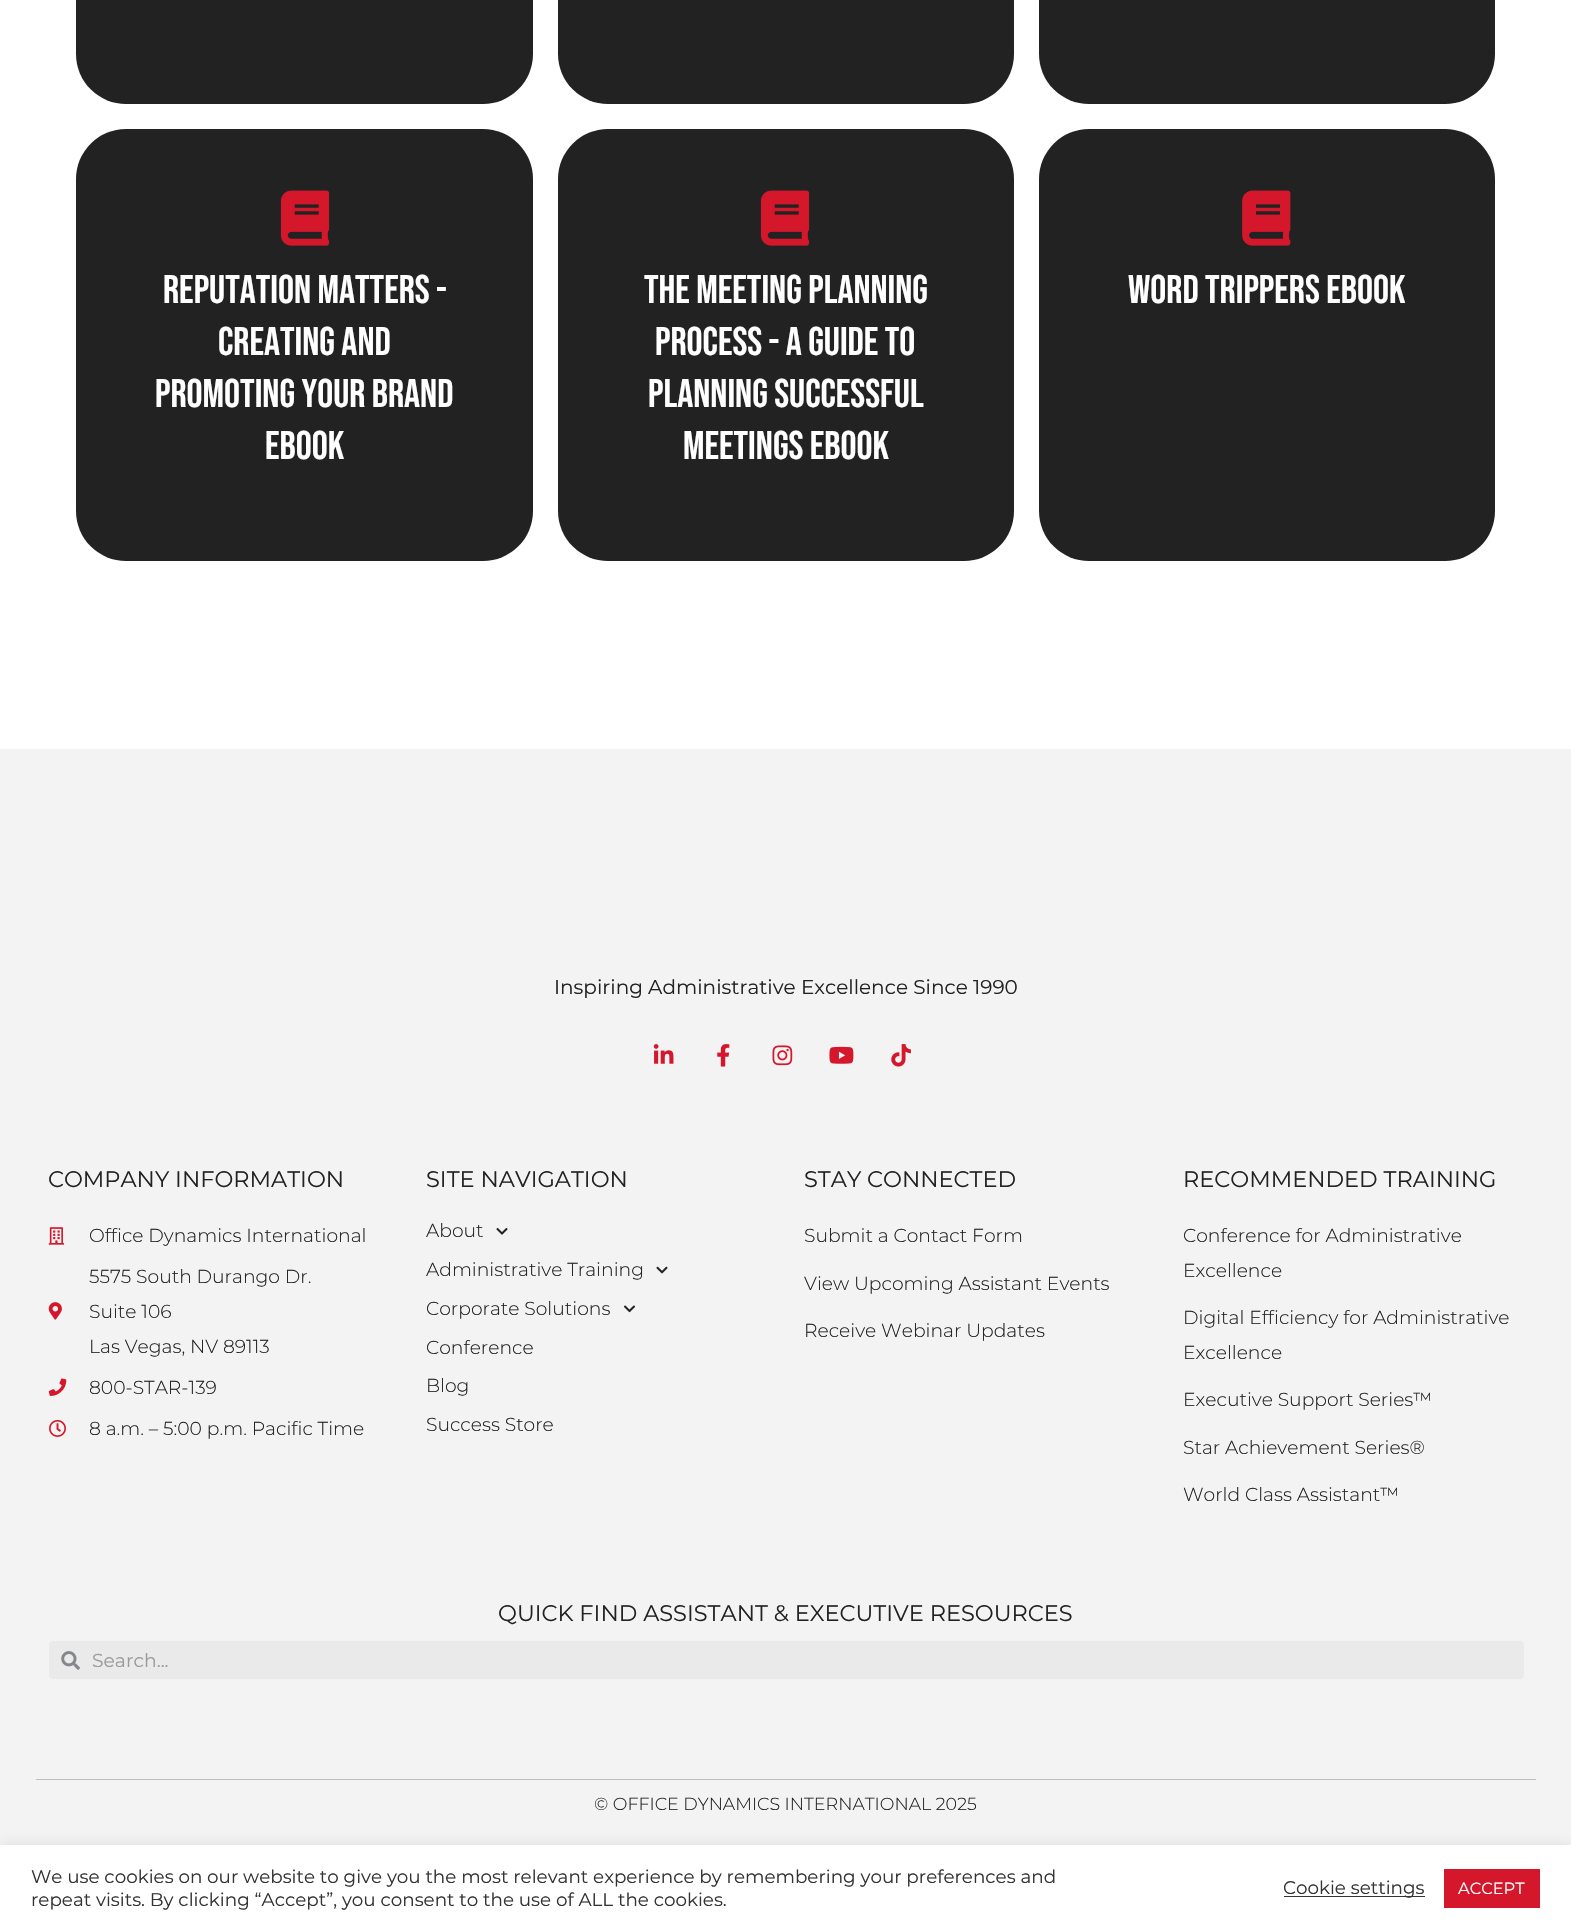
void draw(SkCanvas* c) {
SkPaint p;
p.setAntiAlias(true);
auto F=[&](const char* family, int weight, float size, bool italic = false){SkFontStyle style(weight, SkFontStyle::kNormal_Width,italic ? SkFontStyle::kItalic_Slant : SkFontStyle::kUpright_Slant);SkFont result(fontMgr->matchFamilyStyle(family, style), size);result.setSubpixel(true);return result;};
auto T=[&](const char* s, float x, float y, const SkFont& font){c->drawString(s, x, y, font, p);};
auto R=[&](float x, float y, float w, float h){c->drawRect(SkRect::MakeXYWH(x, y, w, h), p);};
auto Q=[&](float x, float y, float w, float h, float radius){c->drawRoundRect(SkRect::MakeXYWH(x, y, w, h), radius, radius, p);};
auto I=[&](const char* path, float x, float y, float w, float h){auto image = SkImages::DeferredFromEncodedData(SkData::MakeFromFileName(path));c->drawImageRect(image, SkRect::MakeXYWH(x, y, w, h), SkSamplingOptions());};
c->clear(0xffffffff);
p.setColor(0xff222222);
Q(76,-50,457,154,50);
Q(558,-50,456,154,50);
Q(1039,-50,456,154,50);
Q(76,129,457,432,50);
I("1.png",280,190,50,56);
auto f1 = F("Bebas Neue",400,40);
p.setColor(0xffffffff);
T("Reputation Matters -",163,303,f1);
T("Creating and",218,355,f1);
T("Promoting Your Brand",155,407,f1);
T("eBook",265,459,f1);
p.setColor(0xff222222);
Q(558,129,456,432,50);
I("1.png",760,190,50,56);
p.setColor(0xffffffff);
T("The Meeting Planning",644,303,f1);
T("Process - A Guide to",655,355,f1);
T("Planning Successful",648,407,f1);
T("Meetings eBook",683,459,f1);
p.setColor(0xff222222);
Q(1039,129,456,432,50);
I("2.png",1242,190,49,56);
p.setColor(0xffffffff);
T("Word Trippers eBook",1128,303,f1);
p.setColor(0xfff3f3f3);
R(0,749,1571,1096);
auto f2 = F("Montserrat",400,20);
p.setColor(0xff222222);
T("Inspiring Administrative Excellence Since 1990",554,994,f2);
I("3.png",653,1044,21,20);
I("4.png",717,1044,13,23);
I("5.png",772,1045,21,21);
I("6.png",829,1046,25,18);
I("7.png",891,1044,20,23);
auto f3 = F("Montserrat",400,22.5);
T("COMPANY INFORMATION",48,1187,f3);
I("8.png",48,1227,17,18);
auto f4 = F("Montserrat",300,18.75);
T("Office Dynamics International",89,1242,f4);
I("9.png",48,1302,14,18);
T("5575 South Durango Dr.",89,1283,f4);
T("Suite 106",89,1318,f4);
T("Las Vegas, NV 89113",89,1353,f4);
I("10.png",48,1378,19,18);
T("800-STAR-139",89,1394,f4);
I("11.png",49,1420,17,17);
T("8 a.m. – 5:00 p.m. Pacific Time",89,1435,f4);
T("SITE NAVIGATION",426,1187,f3);
T("About",426,1237,f4);
I("12.png",496,1228,12,7);
T("Administrative Training",426,1276,f4);
I("13.png",656,1266,12,8);
T("Corporate Solutions",426,1315,f4);
I("14.png",623,1305,12,8);
T("Conference",426,1354,f4);
T("Blog",426,1392,f4);
T("Success Store",426,1431,f4);
T("STAY CONNECTED",804,1187,f3);
T("Submit a Contact Form",804,1242,f4);
T("View Upcoming Assistant Events",804,1290,f4);
T("Receive Webinar Updates",804,1337,f4);
T("RECOMMENDED TRAINING",1183,1187,f3);
T("Conference for Administrative",1183,1242,f4);
T("Excellence",1183,1277,f4);
T("Digital Efficiency for Administrative",1183,1324,f4);
T("Excellence",1183,1359,f4);
T("Executive Support Series™",1183,1406,f4);
T("Star Achievement Series®",1183,1454,f4);
T("World Class Assistant™",1183,1501,f4);
T("QUICK FIND ASSISTANT & EXECUTIVE RESOURCES",498,1621,f3);
p.setColor(0xffeaeaea);
Q(49,1641,1475,38,4);
I("15.png",61,1651,19,19);
auto f5 = F("Montserrat",400,18.75);
p.setColor(0xff9b9b9b);
T("Search...",92,1667,f5);
p.setColor(0xffbdbdbd);
R(36,1779,1500,1);
auto f6 = F("Montserrat",300,17.5);
p.setColor(0xff222222);
T("© OFFICE DYNAMICS INTERNATIONAL 2025",594,1810,f6);
p.setColor(0x4dacabab);
p.setMaskFilter(SkMaskFilter::MakeBlur(kNormal_SkBlurStyle, 6));
c->drawRect(SkRect::MakeXYWH(0,1844,1571,86),p);
p.setMaskFilter(nullptr);
p.setColor(0xffffffff);
R(0,1845,1571,86);
auto f7 = F("Montserrat",400,18.33);
p.setColor(0xff333333);
T("We use cookies on our website to give you the most relevant experience by remembering your preferences and",31,1883,f7);
T("repeat visits. By clicking “Accept”, you consent to the use of ALL the cookies.",31,1906,f7);
R(1284,1896,141,1);
T("Cookie settings",1283,1894,f7);
p.setColor(0xffd5172b);
R(1444,1869,96,39);
auto f8 = F("Montserrat",400,16.25);
p.setColor(0xffffffff);
T("ACCEPT",1458,1894,f8);
}
